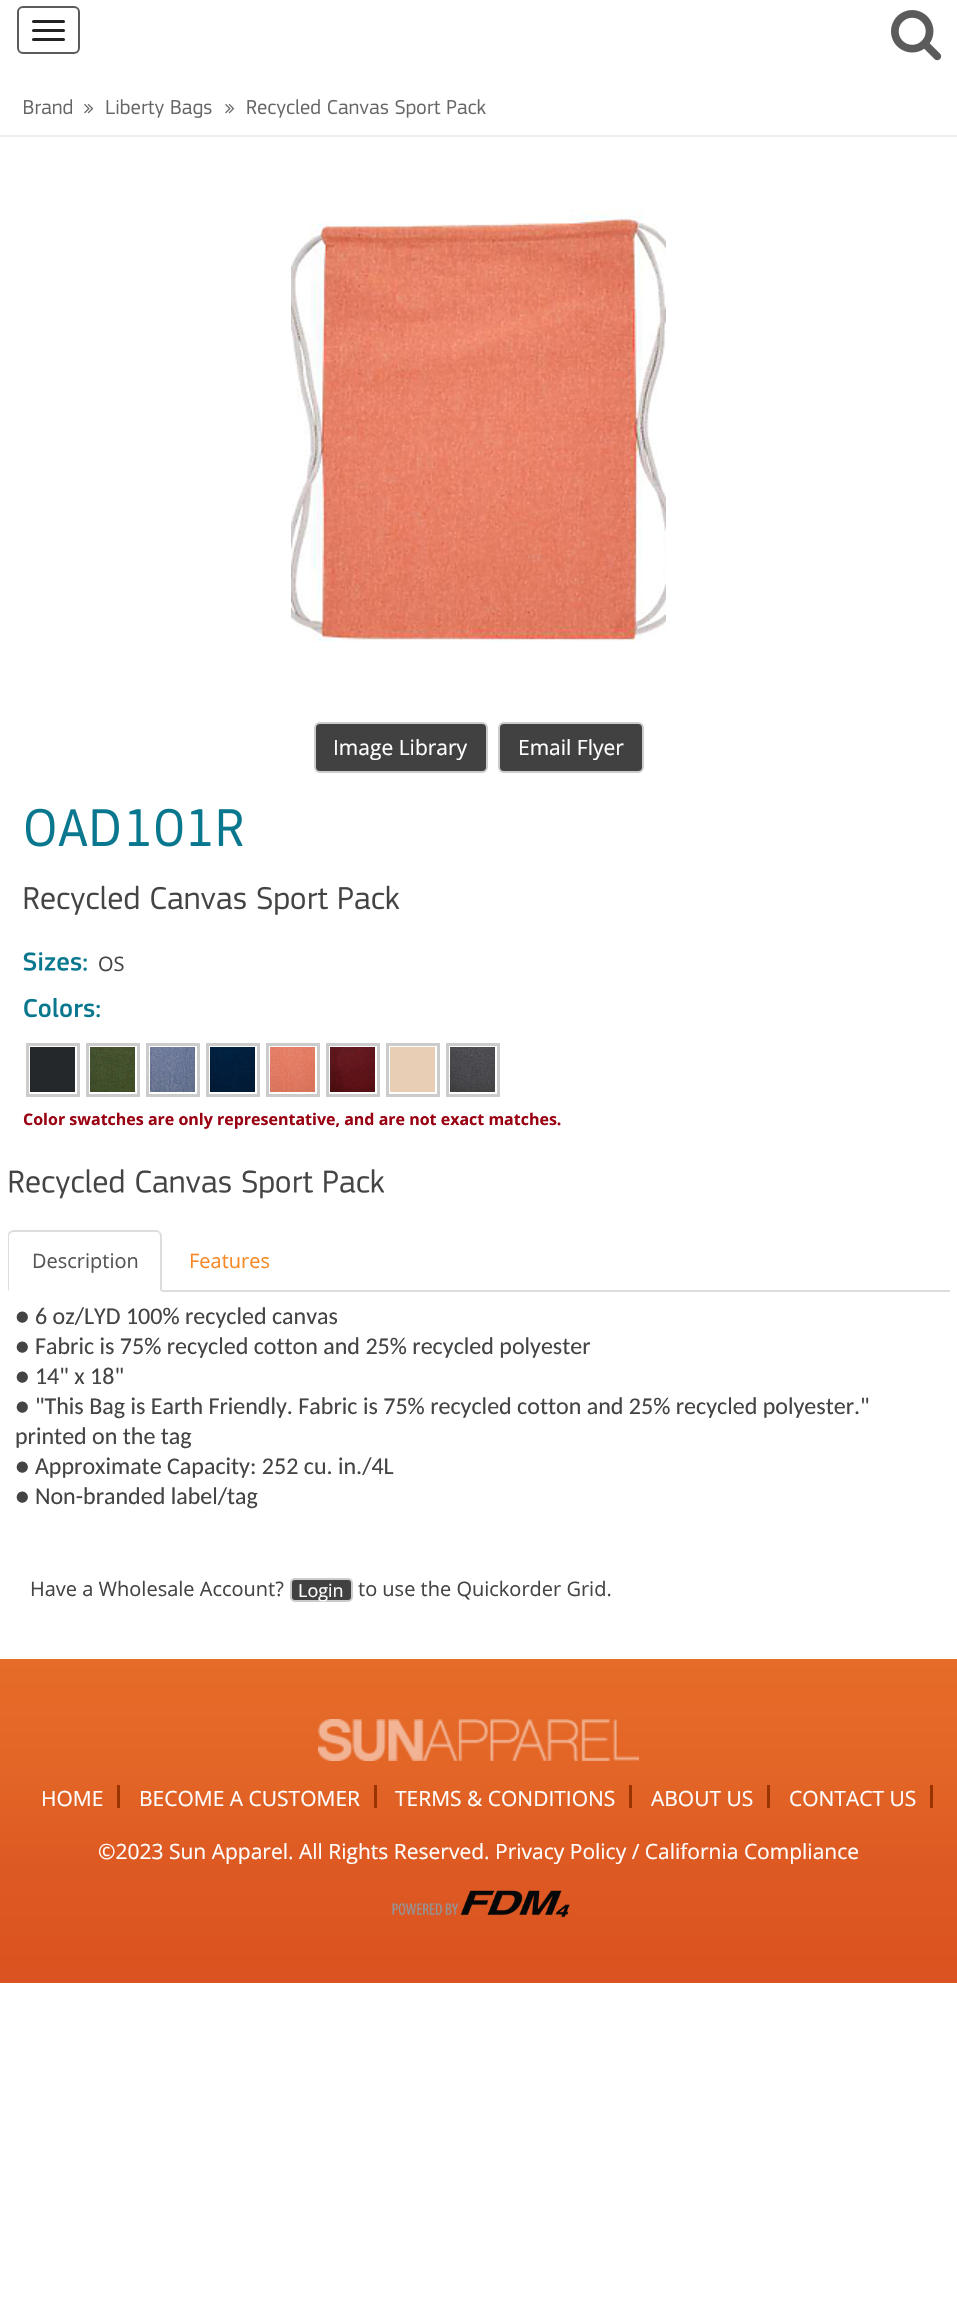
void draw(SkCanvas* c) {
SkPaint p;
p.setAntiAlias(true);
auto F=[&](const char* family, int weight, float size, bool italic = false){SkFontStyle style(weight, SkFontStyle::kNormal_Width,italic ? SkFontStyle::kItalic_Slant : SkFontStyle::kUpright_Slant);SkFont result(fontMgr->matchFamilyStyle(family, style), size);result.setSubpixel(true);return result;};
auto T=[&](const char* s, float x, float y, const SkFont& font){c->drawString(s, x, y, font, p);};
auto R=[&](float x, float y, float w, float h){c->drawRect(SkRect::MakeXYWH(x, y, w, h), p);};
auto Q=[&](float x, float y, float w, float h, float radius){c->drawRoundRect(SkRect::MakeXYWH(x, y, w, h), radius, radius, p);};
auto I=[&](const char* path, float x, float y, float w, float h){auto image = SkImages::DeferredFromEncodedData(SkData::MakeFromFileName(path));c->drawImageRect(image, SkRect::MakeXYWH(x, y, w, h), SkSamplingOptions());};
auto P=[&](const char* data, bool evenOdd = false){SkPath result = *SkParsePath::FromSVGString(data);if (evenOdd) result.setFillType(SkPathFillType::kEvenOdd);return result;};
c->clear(0xffffffff);
p.setStroke(true);
p.setStrokeWidth(2);
p.setColor(0xff5b5b5b);
c->drawRoundRect(SkRect::MakeXYWH(18,7,61,46),5,5,p);
p.setStroke(false);
p.setColor(0xff222222);
Q(32,20,33,3,1.5);
Q(32,29,33,3,1.5);
Q(32,38,33,3,1.5);
I("1.png",891,10,51,51);
p.setColor(0xffeeeeee);
R(0,135,957,2);
I("2.png",24,99,48,16);
I("3.png",84,104,10,10);
I("4.png",106,99,106,19);
I("3.png",225,104,10,10);
I("5.png",247,99,239,19);
I("6.png",291,209,375,433);
p.setColor(0xff414141);
c->drawRoundRect(SkRect::MakeXYWH(315,723,172,49),5,5,p);
p.setStroke(true);
p.setColor(0xffcccccc);
c->drawRoundRect(SkRect::MakeXYWH(315,723,172,49),5,5,p);
auto f1 = F("Open Sans",400,21);
p.setStroke(false);
p.setColor(0xffffffff);
T("Image Library",333,755,f1);
p.setColor(0xff414141);
c->drawRoundRect(SkRect::MakeXYWH(499,723,144,49),5,5,p);
p.setStroke(true);
p.setColor(0xffcccccc);
c->drawRoundRect(SkRect::MakeXYWH(499,723,144,49),5,5,p);
p.setStroke(false);
p.setColor(0xffffffff);
T("Email Flyer",518,755,f1);
I("7.png",25,808,218,39);
I("8.png",24,885,376,30);
I("9.png",23,952,64,19);
auto f2 = F("Open Sans",400,20);
p.setColor(0xff444444);
T("OS",98,971,f2);
I("10.png",24,997,76,21);
p.setStroke(true);
p.setStrokeWidth(3);
p.setColor(0xffcccccc);
c->drawRect(SkRect::MakeXYWH(27.5,1044.5,51,51),p);
p.setStroke(false);
p.setColor(0xff25282a);
R(30,1047,45,45);
p.setStroke(true);
p.setColor(0xffcccccc);
c->drawRect(SkRect::MakeXYWH(87.5,1044.5,51,51),p);
I("11.png",90,1047,45,45);
c->drawRect(SkRect::MakeXYWH(147.5,1044.5,51,51),p);
I("12.png",150,1047,45,45);
c->drawRect(SkRect::MakeXYWH(207.5,1044.5,51,51),p);
I("13.png",210,1047,45,45);
c->drawRect(SkRect::MakeXYWH(267.5,1044.5,51,51),p);
I("14.png",270,1047,45,45);
c->drawRect(SkRect::MakeXYWH(327.5,1044.5,51,51),p);
I("15.png",330,1047,45,45);
c->drawRect(SkRect::MakeXYWH(387.5,1044.5,51,51),p);
p.setStroke(false);
p.setColor(0xffe7ceb5);
R(390,1047,45,45);
p.setStroke(true);
p.setColor(0xffcccccc);
c->drawRect(SkRect::MakeXYWH(447.5,1044.5,51,51),p);
I("16.png",450,1047,45,45);
auto f3 = F("Open Sans",700,16);
p.setStroke(false);
p.setColor(0xff990011);
T("Color swatches are only representative, and are not exact matches.",23,1125,f3);
I("17.png",9,1169,376,30);
p.setColor(0xffdddddd);
R(162,1290,788,2);
c->drawPath(P("M14 1230c-2 0-4 1-5 2l2 1c0-1 2-1 3-1h142c1 0 2 0 3 1l1-1c-1-1-2-2-4-2z"),p);
c->drawPath(P("M162 1292v-56c0-2-1-3-2-4l-1 1l1 3v54z"),p);
c->drawPath(P("M9 1232c-1 1-1 3-1 4v55l1-1v-55l2-2z"),p);
p.setColor(0xff555555);
T("Description",32,1268,f2);
p.setColor(0xfff68925);
T("Features",189,1268,f2);
auto f4 = F("Carlito",400,24);
p.setColor(0xff444444);
T("● 6 oz/LYD 100% recycled canvas",15,1324,f4);
T("● Fabric is 75% recycled cotton and 25% recycled polyester",15,1354,f4);
T("● 14\" x 18\"",15,1384,f4);
T("● \"This Bag is Earth Friendly. Fabric is 75% recycled cotton and 25% recycled polyester.\"",15,1414,f4);
T("printed on the tag",15,1444,f4);
T("● Approximate Capacity: 252 cu. in./4L",15,1474,f4);
T("● Non-branded label/tag",15,1504,f4);
T("Have a Wholesale Account?",30,1596,f2);
p.setColor(0xff414141);
c->drawRoundRect(SkRect::MakeXYWH(291,1579,61,22),4,4,p);
p.setStroke(true);
p.setStrokeWidth(2);
p.setColor(0xffcccccc);
c->drawRoundRect(SkRect::MakeXYWH(291,1579,61,22),4,4,p);
auto f5 = F("Open Sans",400,18);
p.setStroke(false);
p.setColor(0xffffffff);
T("Login",298,1597,f5);
p.setColor(0xff444444);
T("to use the Quickorder Grid.",358,1596,f2);
{
const SkColor colors[] = {0xffe66c29,0xffe36527,0xffdd5922,0xffdb5320};
const float stops[] = {0,.35,.65,1};
const SkPoint ends[] = {{479,1659}, {479,1983}};
p.setShader(SkGradientShader::MakeLinear(ends, colors, stops, 4, SkTileMode::kClamp));
p.setAlpha(255);
}
R(0,1659,957,324);
I("18.png",318,1719,321,42);
p.setShader(nullptr);
p.setColor(0xffffffff);
T("HOME",41,1806,f1);
p.setColor(0xff993300);
R(117,1785,3,23);
p.setColor(0xffffffff);
T("BECOME A CUSTOMER",139,1806,f1);
p.setColor(0xff993300);
R(374,1785,3,23);
p.setColor(0xffffffff);
T("TERMS & CONDITIONS",395,1806,f1);
p.setColor(0xff993300);
R(629,1785,3,23);
p.setColor(0xffffffff);
T("ABOUT US",651,1806,f1);
p.setColor(0xff993300);
R(767,1785,3,23);
p.setColor(0xffffffff);
T("CONTACT US",789,1806,f1);
p.setColor(0xff993300);
R(930,1785,3,23);
p.setColor(0xffffffff);
T("©2023 Sun Apparel. All Rights Reserved. Privacy Policy / California Compliance",98,1859,f1);
I("19.png",392,1890,178,28);
}
